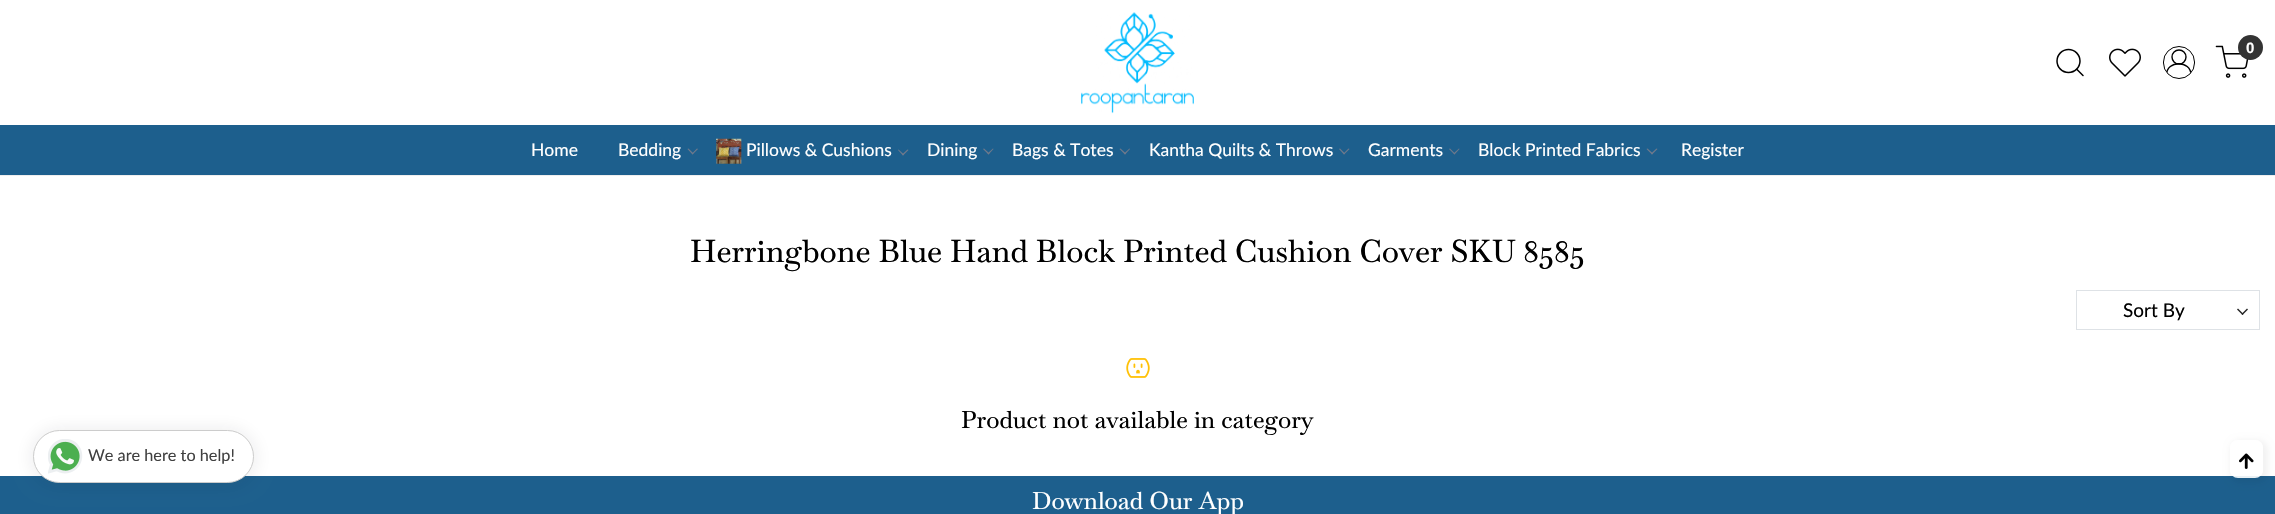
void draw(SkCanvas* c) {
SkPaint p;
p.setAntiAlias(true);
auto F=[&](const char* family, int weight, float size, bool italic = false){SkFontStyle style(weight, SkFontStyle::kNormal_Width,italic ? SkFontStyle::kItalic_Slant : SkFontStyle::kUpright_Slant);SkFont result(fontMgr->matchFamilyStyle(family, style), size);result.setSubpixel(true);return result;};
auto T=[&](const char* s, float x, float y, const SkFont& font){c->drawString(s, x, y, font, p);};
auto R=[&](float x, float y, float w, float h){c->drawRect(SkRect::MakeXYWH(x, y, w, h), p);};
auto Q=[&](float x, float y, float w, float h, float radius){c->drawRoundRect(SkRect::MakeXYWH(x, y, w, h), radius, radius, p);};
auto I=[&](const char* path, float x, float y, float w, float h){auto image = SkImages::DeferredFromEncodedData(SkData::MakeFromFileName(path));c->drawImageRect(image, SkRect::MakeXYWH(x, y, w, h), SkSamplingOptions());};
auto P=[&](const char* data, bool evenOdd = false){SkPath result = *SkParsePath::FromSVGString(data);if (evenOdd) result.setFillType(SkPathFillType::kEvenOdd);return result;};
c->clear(0xffffffff);
p.setColor(0xffeeeeee);
R(0,175,2275,1);
I("1.png",1081,12,113,102);
p.setStroke(true);
p.setStrokeWidth(1.5);
p.setColor(0xff000000);
c->drawCircle(2068.5,61,11.5,p);
p.setStrokeCap(SkPaint::kRound_Cap);
p.setStrokeJoin(SkPaint::kRound_Join);
c->drawPath(P("M2083 75.5l-6-6"),p);
I("2.png",2109,48,32,29);
p.setStrokeWidth(1);
p.setStrokeCap(SkPaint::kButt_Cap);
p.setStrokeJoin(SkPaint::kMiter_Join);
c->drawRoundRect(SkRect::MakeXYWH(2163.5,46.5,31,32),15.5,15.5,p);
c->save();
c->clipPath(P("M2179 48c8.5 0 15 6.5 15 15c0 8.5-6.5 15-15 15c-8.5 0-15-6.5-15-15c0-8.5 6.5-15 15-15z"),true);
p.setStrokeWidth(1.4);
p.setStrokeCap(SkPaint::kSquare_Cap);
c->drawPath(P("M2166.5 75c0-15 24.5-15 24.5 0"),p);
c->restore();
p.setStrokeCap(SkPaint::kButt_Cap);
c->drawCircle(2179,57,7,p);
I("3.png",2215,45,34,33);
p.setStroke(false);
p.setColor(0xff333333);
c->drawCircle(2250.5,47.5,12.5,p);
auto f1 = F("Liberation Sans",700,15);
p.setColor(0xffffffff);
T("0",2246,53,f1);
p.setColor(0xff1d5f8d);
R(0,125,2275,50);
auto f2 = F("Lato",400,17.5);
p.setColor(0xffffffff);
T("Home",531,156,f2);
T("Bedding",618,156,f2);
p.setColor(0xff70798b);
c->drawPath(P("M697 148.5l1 .5l-5.5 5.5l-.5-1z"),p);
c->drawPath(P("M688.5 148.5l5 5l-1 1l-5-5.5z"),p);
I("4.png",716,138,26,26);
p.setColor(0xffffffff);
T("Pillows & Cushions",746,156,f2);
p.setColor(0xff70798b);
c->drawPath(P("M907.5 149.5l1 .5l-5.5 5.5l-1-1z"),p);
c->drawPath(P("M898.5 149.5l5.5 5l-1 1l-5-5.5z"),p);
p.setColor(0xffffffff);
T("Dining",927,156,f2);
p.setColor(0xff70798b);
c->drawPath(P("M993 148.5l.5 .5l-5 5.5l-1-1z"),p);
c->drawPath(P("M984 148.5l5.5 5l-1 1l-5.5-5.5z"),p);
p.setColor(0xffffffff);
T("Bags & Totes",1012,156,f2);
p.setColor(0xff70798b);
c->drawPath(P("M1129.5 148.5l.5 .5l-5 5.5l-1-1z"),p);
c->drawPath(P("M1120.5 148.5l5.5 5l-1 1l-5.5-5.5z"),p);
p.setColor(0xffffffff);
T("Kantha Quilts & Throws",1149,156,f2);
p.setColor(0xff70798b);
c->drawPath(P("M1348.5 148.5l1 .5l-5.5 5.5l-.5-1z"),p);
c->drawPath(P("M1340 148.5l5 5l-1 1l-5-5.5z"),p);
p.setColor(0xffffffff);
T("Garments",1368,156,f2);
p.setColor(0xff70798b);
c->drawPath(P("M1459 148.5l.5 .5l-5 5.5l-1-1z"),p);
c->drawPath(P("M1450 148.5l5 5l-.5 1l-5.5-5.5z"),p);
p.setColor(0xffffffff);
T("Block Printed Fabrics",1478,156,f2);
p.setColor(0xff70798b);
c->drawPath(P("M1656.5 148.5l1 .5l-5.5 5.5l-1-1z"),p);
c->drawPath(P("M1647.5 148.5l5.5 5l-1 1l-5.5-5.5z"),p);
p.setColor(0xffffffff);
T("Register",1681,156,f2);
auto f3 = F("Baskervville",500,31.25);
p.setColor(0xff000000);
T("Herringbone Blue Hand Block Printed Cushion Cover SKU 8585",690,262,f3);
p.setStroke(true);
p.setStrokeWidth(1);
p.setColor(0xffdee2e6);
c->drawRect(SkRect::MakeXYWH(2076.5,290.5,183,39),p);
auto f4 = F("Lato",400,19);
p.setStroke(false);
p.setColor(0xff000000);
T("Sort By",2123,317,f4);
p.setColor(0xff222222);
c->drawPath(P("M2247 308.5l1 1l-5.5 5.5l-1-1z"),p);
c->drawPath(P("M2238 308.5l5.5 5.5l-1 1l-5.5-5.5z"),p);
I("5.png",1126,358,24,20);
auto f5 = F("Baskervville",500,24);
p.setColor(0xff000000);
T("Product not available in category",961,428,f5);
p.setColor(0xff1d5f8d);
R(0,476,2275,38);
p.setColor(0x1a202124);
p.setMaskFilter(SkMaskFilter::MakeBlur(kNormal_SkBlurStyle, 9.5));
c->drawRoundRect(SkRect::MakeXYWH(33,431,221,53),26.5,26.5,p);
p.setMaskFilter(nullptr);
p.setColor(0xffffffff);
c->drawRoundRect(SkRect::MakeXYWH(33.5,430.5,220,52),26,26,p);
p.setStroke(true);
p.setColor(0xffcccccc);
c->drawRoundRect(SkRect::MakeXYWH(33.5,430.5,220,52),26,26,p);
I("6.png",48,439,35,35);
auto f6 = F("Lato",400,16.25);
p.setStroke(false);
p.setColor(0xff404040);
T("We are here to help!",88,461,f6);
c->save();
c->clipPath(P("M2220 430h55v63h-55zm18 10h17c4.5 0 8 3.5 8 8v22c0 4.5-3.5 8-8 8h-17c-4.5 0-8-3.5-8-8v-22c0-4.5 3.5-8 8-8z",true),true);
p.setColor(0x0d000000);
p.setMaskFilter(SkMaskFilter::MakeBlur(kNormal_SkBlurStyle, 3));
c->drawRoundRect(SkRect::MakeXYWH(2230,440,38,43),10,10,p);
p.setMaskFilter(nullptr);
c->restore();
p.setColor(0xe6ffffff);
Q(2230,440,33,38,8);
I("7.png",2239,453,15,16);
p.setColor(0xffffffff);
T("Download Our App",1032,509,f5);
}
